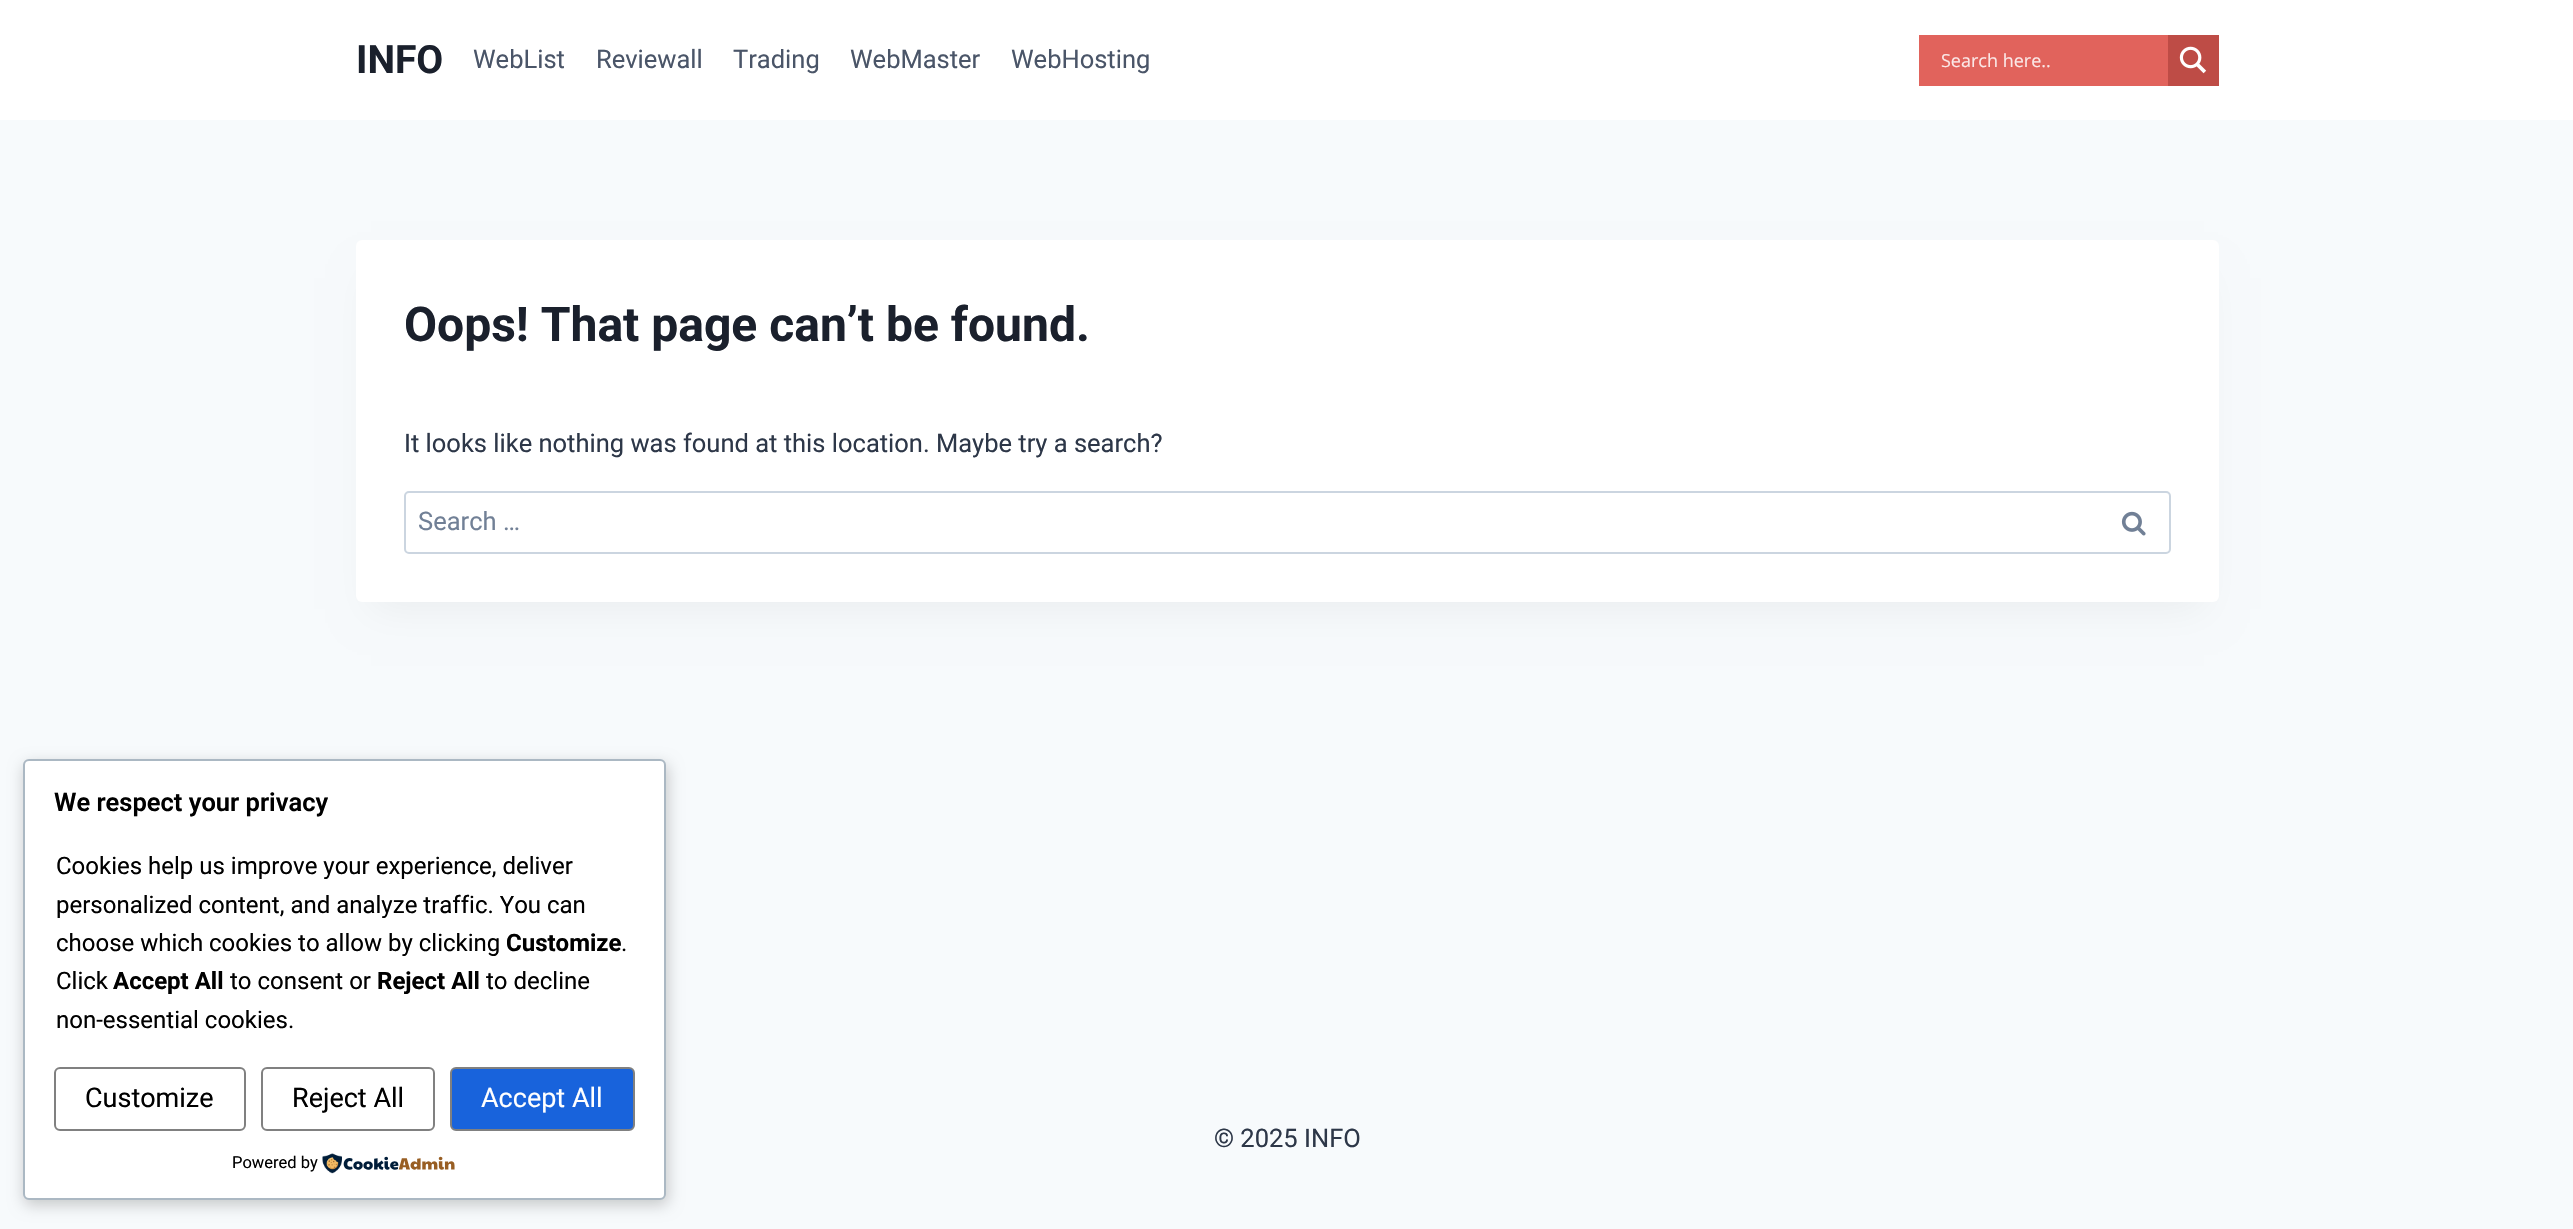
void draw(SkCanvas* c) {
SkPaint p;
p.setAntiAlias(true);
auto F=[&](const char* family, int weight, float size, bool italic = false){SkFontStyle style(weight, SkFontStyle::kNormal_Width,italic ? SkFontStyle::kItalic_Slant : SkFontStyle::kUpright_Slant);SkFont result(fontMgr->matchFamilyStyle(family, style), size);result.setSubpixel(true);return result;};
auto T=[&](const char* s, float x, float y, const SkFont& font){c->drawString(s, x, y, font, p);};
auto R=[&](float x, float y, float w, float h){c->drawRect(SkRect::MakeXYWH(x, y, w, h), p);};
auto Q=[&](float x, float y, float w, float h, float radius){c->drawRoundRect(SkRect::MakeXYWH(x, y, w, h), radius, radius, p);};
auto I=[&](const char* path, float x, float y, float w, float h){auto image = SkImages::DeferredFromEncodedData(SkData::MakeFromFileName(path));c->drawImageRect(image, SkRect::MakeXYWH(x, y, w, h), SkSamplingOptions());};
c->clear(0xfff7fafc);
p.setColor(0x33000000);
p.setMaskFilter(SkMaskFilter::MakeBlur(kNormal_SkBlurStyle, 7.5));
c->drawRoundRect(SkRect::MakeXYWH(24,764,644,441),6,6,p);
p.setMaskFilter(nullptr);
p.setColor(0xffffffff);
c->drawRoundRect(SkRect::MakeXYWH(24,760,641,439),5,5,p);
p.setStroke(true);
p.setStrokeWidth(2);
p.setColor(0xffabb8c3);
c->drawRoundRect(SkRect::MakeXYWH(24,760,641,439),5,5,p);
auto f1 = F("Roboto",600,25.5);
p.setStroke(false);
p.setColor(0xff000000);
T("We respect your privacy",54,811,f1);
auto f2 = F("Roboto",400,24);
T("Cookies help us improve your experience, deliver",56,874,f2);
T("personalized content, and analyze traffic. You can",56,913,f2);
T("choose which cookies to allow by clicking",56,951,f2);
auto f3 = F("Roboto",700,24);
T("Customize",506,951,f3);
T(".",621,951,f2);
T("Click",56,989,f2);
T("Accept All",113,989,f3);
T("to consent or",230,989,f2);
T("Reject All",377,989,f3);
T("to decline",486,989,f2);
T("non-essential cookies.",56,1028,f2);
p.setStroke(true);
p.setColor(0xff808080);
c->drawRoundRect(SkRect::MakeXYWH(55,1068,190,62),5,5,p);
auto f4 = F("Roboto",400,27);
p.setStroke(false);
p.setColor(0xff000000);
T("Customize",85,1107,f4);
p.setStroke(true);
p.setColor(0xff808080);
c->drawRoundRect(SkRect::MakeXYWH(262,1068,172,62),5,5,p);
p.setStroke(false);
p.setColor(0xff000000);
T("Reject All",292,1107,f4);
p.setColor(0xff1863dc);
c->drawRoundRect(SkRect::MakeXYWH(451,1068,183,62),5,5,p);
p.setStroke(true);
p.setColor(0xff808080);
c->drawRoundRect(SkRect::MakeXYWH(451,1068,183,62),5,5,p);
p.setStroke(false);
p.setColor(0xffffffff);
T("Accept All",481,1107,f4);
auto f5 = F("Roboto",400,16.5);
p.setColor(0xff000000);
T("Powered by",232,1168,f5);
I("1.png",322,1153,133,21);
p.setColor(0xffffffff);
R(0,0,2573,120);
auto f6 = F("Roboto",700,39);
p.setColor(0xff1a202c);
T("INFO",356,73,f6);
auto f7 = F("Roboto",400,25.5);
p.setColor(0xff4a5568);
T("WebList",473,68,f7);
T("Reviewall",596,68,f7);
T("Trading",733,68,f7);
T("WebMaster",850,68,f7);
T("WebHosting",1011,68,f7);
p.setColor(0xffe1635c);
R(1919,35,249,51);
auto f8 = F("Open Sans",400,18);
p.setColor(0xfffbe8e7);
T("Search here..",1941,67,f8);
p.setColor(0xffbe4c46);
R(2168,35,51,51);
I("2.png",2179,46,28,28);
p.setColor(0x0d000000);
p.setMaskFilter(SkMaskFilter::MakeBlur(kNormal_SkBlurStyle, 19));
c->drawRect(SkRect::MakeXYWH(371,278,1833,331),p);
p.setMaskFilter(nullptr);
p.setColor(0xffffffff);
Q(356,240,1863,362,6);
auto f9 = F("Roboto",700,48);
p.setColor(0xff1a202c);
T("Oops! That page can’t be found.",404,341,f9);
p.setColor(0xff2d3748);
T("It looks like nothing was found at this location. Maybe try a search?",404,452,f7);
p.setStroke(true);
p.setColor(0xffcbd5e0);
c->drawRoundRect(SkRect::MakeXYWH(405,492,1765,61),4,4,p);
p.setStroke(false);
p.setColor(0xff718096);
T("Search …",418,530,f7);
I("3.png",2121,511,25,25);
p.setColor(0xff2d3748);
T("© 2025 INFO",1214,1147,f7);
}
